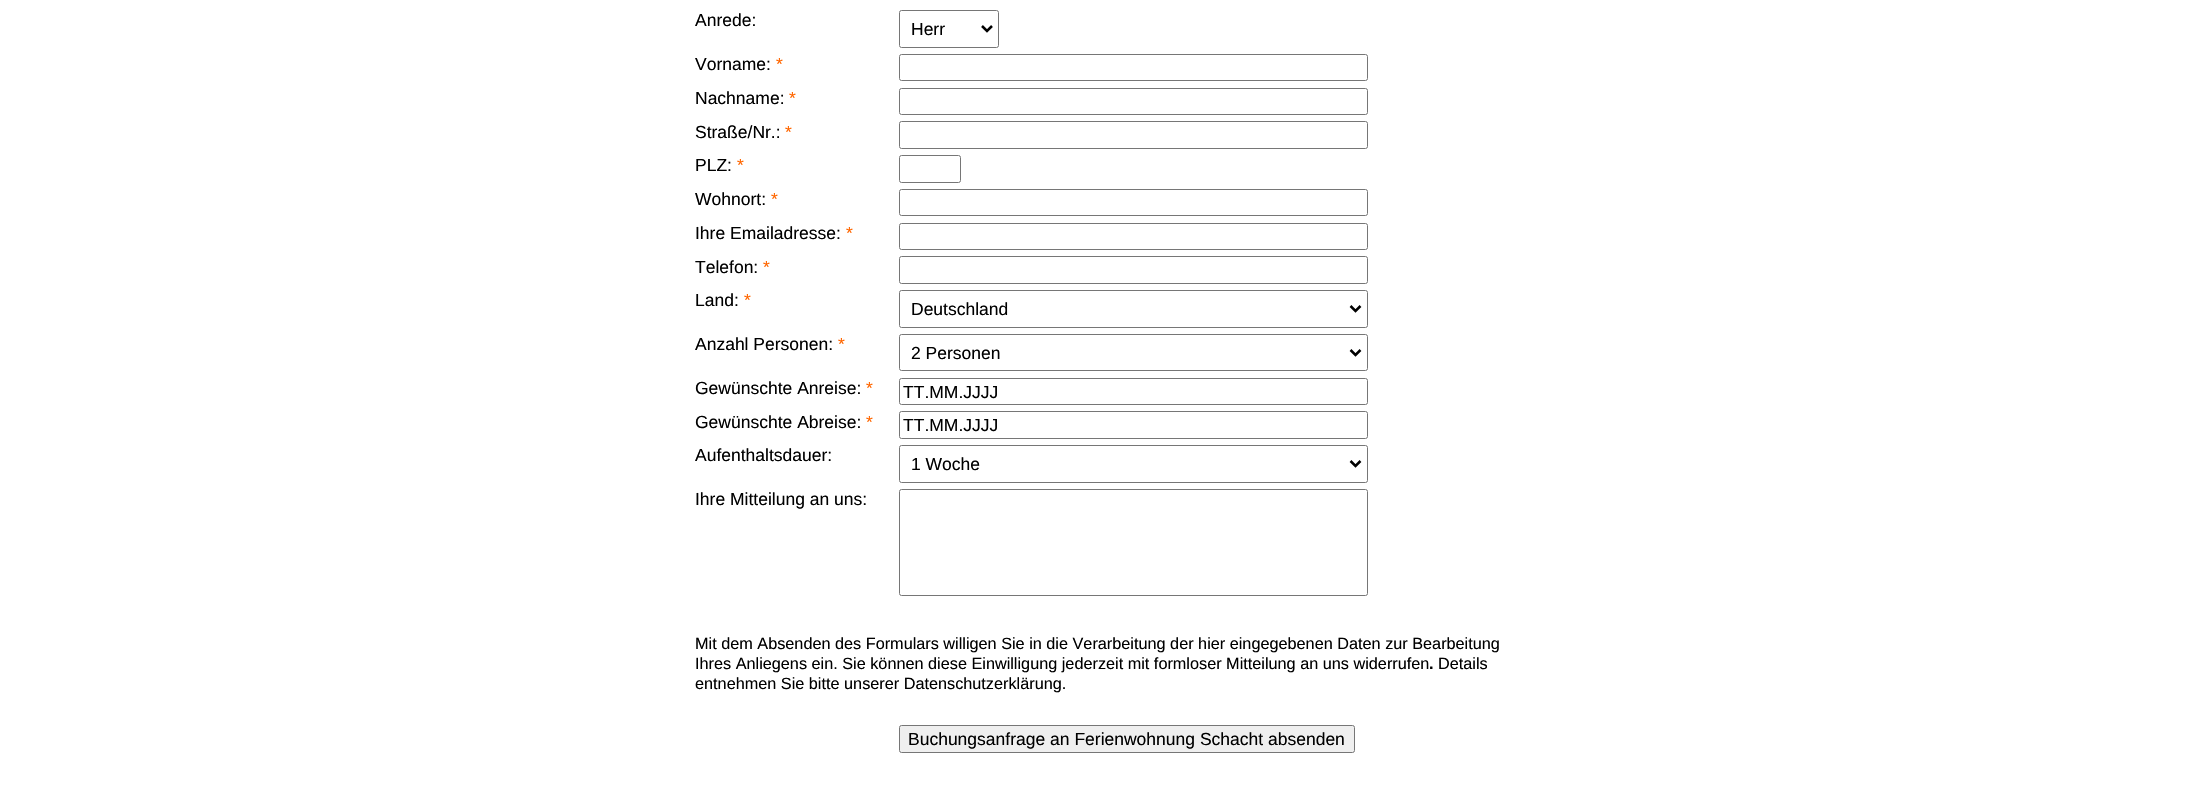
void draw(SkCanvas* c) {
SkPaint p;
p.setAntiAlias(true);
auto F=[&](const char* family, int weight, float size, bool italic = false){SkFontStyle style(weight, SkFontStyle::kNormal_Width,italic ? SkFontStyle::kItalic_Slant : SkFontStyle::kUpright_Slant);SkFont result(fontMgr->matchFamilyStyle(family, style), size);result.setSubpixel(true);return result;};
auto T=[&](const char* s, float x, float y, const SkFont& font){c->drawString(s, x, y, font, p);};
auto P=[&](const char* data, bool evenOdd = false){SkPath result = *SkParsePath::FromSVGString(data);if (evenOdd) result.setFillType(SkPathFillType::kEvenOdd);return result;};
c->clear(0xffffffff);
auto f1 = F("Liberation Sans",400,17.5);
p.setColor(0xff000000);
T("Anrede:",695,26,f1);
p.setStroke(true);
p.setStrokeWidth(1);
p.setColor(0xff767676);
c->drawRoundRect(SkRect::MakeXYWH(899.5,10.5,99,37),2,2,p);
p.setStrokeWidth(2.5);
p.setColor(0xff000000);
c->drawPath(P("M982 26l5 5l5-5"),p);
p.setStroke(false);
T("Herr",911,35,f1);
T("Vorname:",695,70,f1);
p.setColor(0xffff6600);
T("*",776,70,f1);
p.setStroke(true);
p.setStrokeWidth(1);
p.setColor(0xff767676);
c->drawRoundRect(SkRect::MakeXYWH(899.5,54.5,468,26),2,2,p);
p.setStroke(false);
p.setColor(0xff000000);
T("Nachname:",695,104,f1);
p.setColor(0xffff6600);
T("*",789,104,f1);
p.setStroke(true);
p.setColor(0xff767676);
c->drawRoundRect(SkRect::MakeXYWH(899.5,88.5,468,26),2,2,p);
p.setStroke(false);
p.setColor(0xff000000);
T("Straße/Nr.:",695,138,f1);
p.setColor(0xffff6600);
T("*",785,138,f1);
p.setStroke(true);
p.setColor(0xff767676);
c->drawRoundRect(SkRect::MakeXYWH(899.5,121.5,468,27),2,2,p);
p.setStroke(false);
p.setColor(0xff000000);
T("PLZ:",695,171,f1);
p.setColor(0xffff6600);
T("*",737,171,f1);
p.setStroke(true);
p.setColor(0xff767676);
c->drawRoundRect(SkRect::MakeXYWH(899.5,155.5,61,27),2,2,p);
p.setStroke(false);
p.setColor(0xff000000);
T("Wohnort:",695,205,f1);
p.setColor(0xffff6600);
T("*",771,205,f1);
p.setStroke(true);
p.setColor(0xff767676);
c->drawRoundRect(SkRect::MakeXYWH(899.5,189.5,468,26),2,2,p);
p.setStroke(false);
p.setColor(0xff000000);
T("Ihre Emailadresse:",695,239,f1);
p.setColor(0xffff6600);
T("*",846,239,f1);
p.setStroke(true);
p.setColor(0xff767676);
c->drawRoundRect(SkRect::MakeXYWH(899.5,223.5,468,26),2,2,p);
p.setStroke(false);
p.setColor(0xff000000);
T("Telefon:",695,273,f1);
p.setColor(0xffff6600);
T("*",763,273,f1);
p.setStroke(true);
p.setColor(0xff767676);
c->drawRoundRect(SkRect::MakeXYWH(899.5,256.5,468,27),2,2,p);
p.setStroke(false);
p.setColor(0xff000000);
T("Land:",695,306,f1);
p.setColor(0xffff6600);
T("*",744,306,f1);
p.setStroke(true);
p.setColor(0xff767676);
c->drawRoundRect(SkRect::MakeXYWH(899.5,290.5,468,37),2,2,p);
p.setStrokeWidth(2.5);
p.setColor(0xff000000);
c->drawPath(P("M1350.5 306l5 5l5-5"),p);
p.setStroke(false);
T("Deutschland",911,315,f1);
T("Anzahl Personen:",695,350,f1);
p.setColor(0xffff6600);
T("*",838,350,f1);
p.setStroke(true);
p.setStrokeWidth(1);
p.setColor(0xff767676);
c->drawRoundRect(SkRect::MakeXYWH(899.5,334.5,468,36),2,2,p);
p.setStrokeWidth(2.5);
p.setColor(0xff000000);
c->drawPath(P("M1350.5 350l5 5l5-5"),p);
p.setStroke(false);
T("2 Personen",911,359,f1);
T("Gewünschte Anreise:",695,394,f1);
p.setColor(0xffff6600);
T("*",866,394,f1);
p.setStroke(true);
p.setStrokeWidth(1);
p.setColor(0xff767676);
c->drawRoundRect(SkRect::MakeXYWH(899.5,378.5,468,26),2,2,p);
p.setStroke(false);
p.setColor(0xff000000);
T("TT.MM.JJJJ",903,398,f1);
T("Gewünschte Abreise:",695,428,f1);
p.setColor(0xffff6600);
T("*",866,428,f1);
p.setStroke(true);
p.setColor(0xff767676);
c->drawRoundRect(SkRect::MakeXYWH(899.5,411.5,468,27),2,2,p);
p.setStroke(false);
p.setColor(0xff000000);
T("TT.MM.JJJJ",903,431,f1);
T("Aufenthaltsdauer:",695,461,f1);
p.setStroke(true);
p.setColor(0xff767676);
c->drawRoundRect(SkRect::MakeXYWH(899.5,445.5,468,37),2,2,p);
p.setStrokeWidth(2.5);
p.setColor(0xff000000);
c->drawPath(P("M1350.5 461l5 5l5-5"),p);
p.setStroke(false);
T("1 Woche",911,470,f1);
T("Ihre Mitteilung an uns:",695,505,f1);
p.setStroke(true);
p.setStrokeWidth(1);
p.setColor(0xff767676);
c->drawRoundRect(SkRect::MakeXYWH(899.5,489.5,468,106),2,2,p);
auto f2 = F("Liberation Sans",400,16.25);
p.setStroke(false);
p.setColor(0xff000000);
T("Mit dem Absenden des Formulars willigen Sie in die Verarbeitung der hier eingegebenen Daten zur Bearbeitung",695,649,f2);
T("Ihres Anliegens ein. Sie können diese Einwilligung jederzeit mit formloser Mitteilung an uns widerrufen",695,669,f2);
auto f3 = F("Liberation Sans",700,16.25);
T(".",1429,669,f3);
T("Details",1438,669,f2);
T("entnehmen Sie bitte unserer Datenschutzerklärung.",695,689,f2);
p.setColor(0xffefefef);
c->drawRoundRect(SkRect::MakeXYWH(899.5,725.5,455,27),2,2,p);
p.setStroke(true);
p.setColor(0xff767676);
c->drawRoundRect(SkRect::MakeXYWH(899.5,725.5,455,27),2,2,p);
p.setStroke(false);
p.setColor(0xff000000);
T("Buchungsanfrage an Ferienwohnung Schacht absenden",908,745,f1);
}
